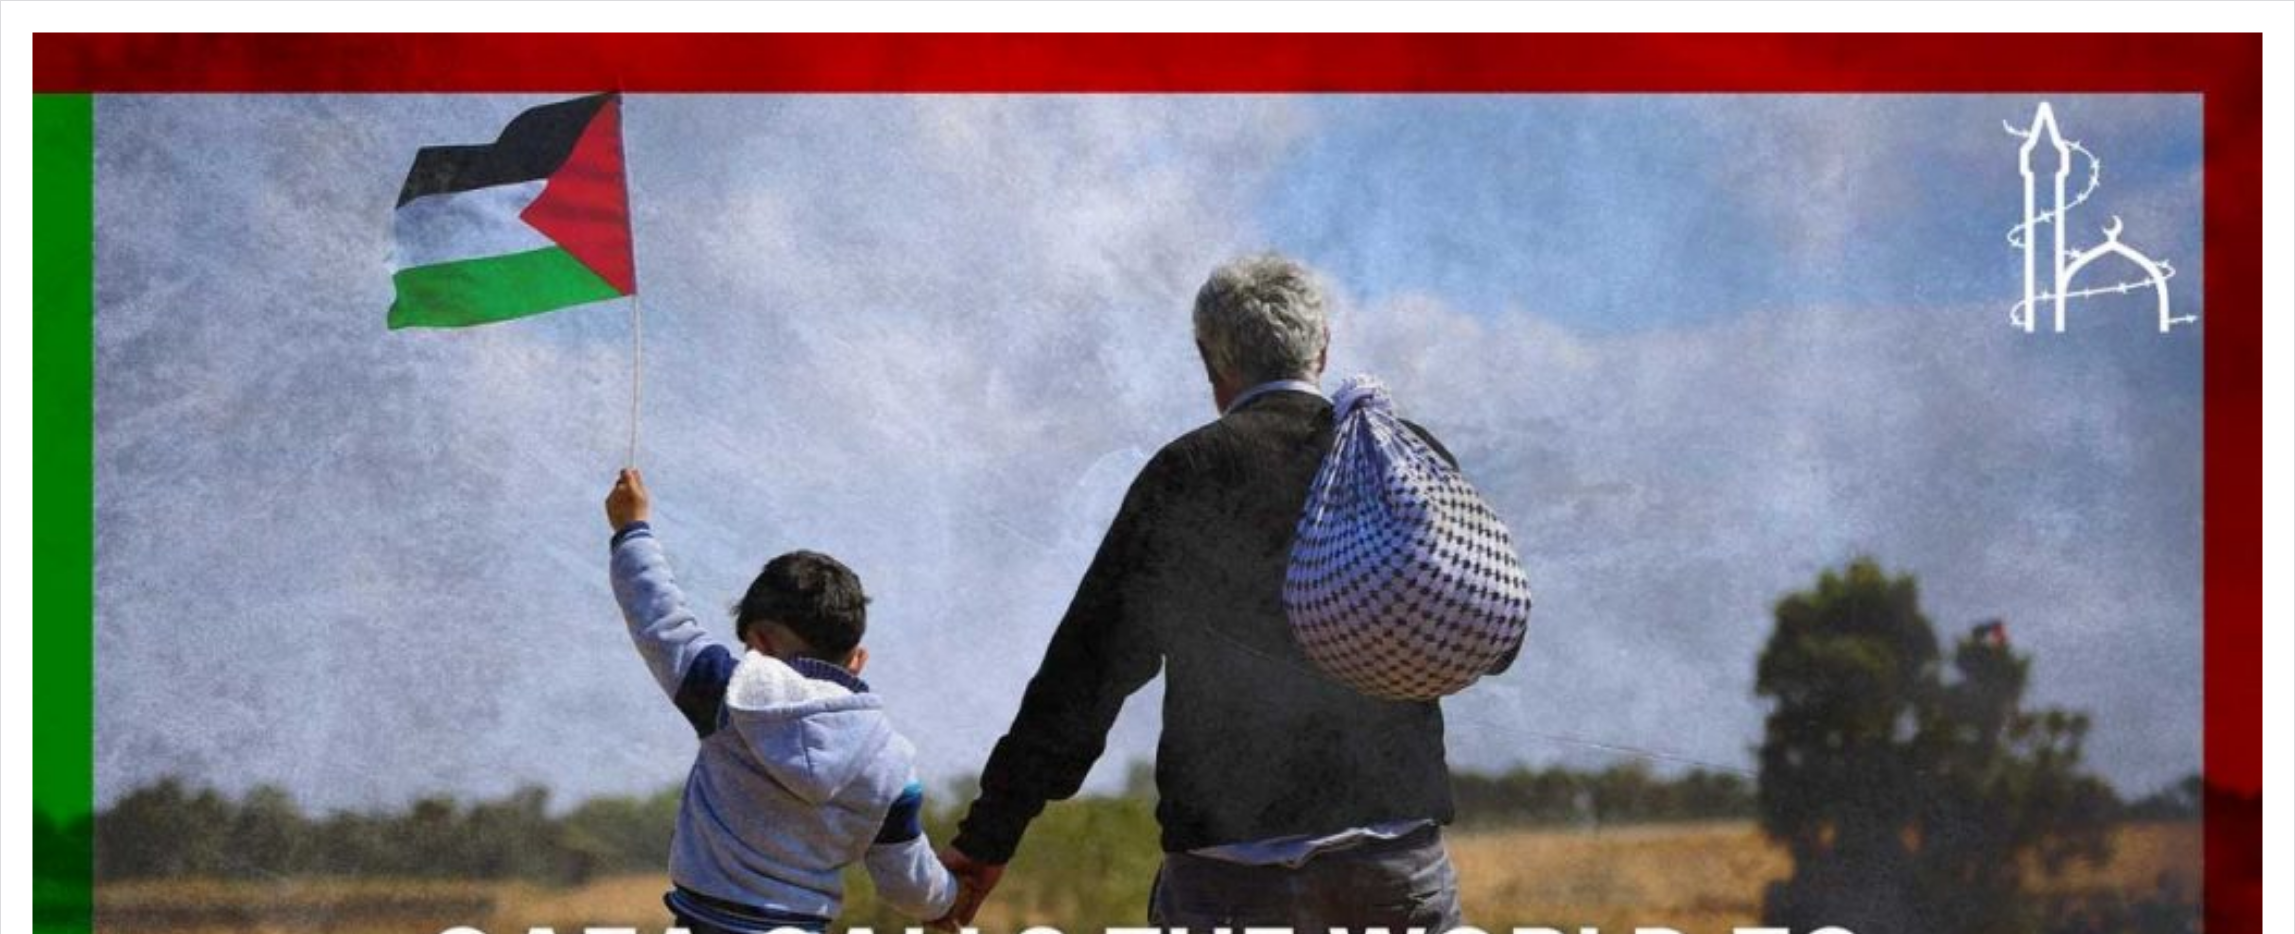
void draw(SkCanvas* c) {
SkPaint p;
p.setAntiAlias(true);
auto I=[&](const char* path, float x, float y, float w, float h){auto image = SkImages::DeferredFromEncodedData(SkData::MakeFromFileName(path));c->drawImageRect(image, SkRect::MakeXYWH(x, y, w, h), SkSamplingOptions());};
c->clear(0xffffffff);
p.setStroke(true);
p.setStrokeWidth(1);
p.setColor(0xffdcdcde);
c->drawRect(SkRect::MakeXYWH(.5,.5,2294,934),p);
I("1.png",32,32,2231,902);
}
